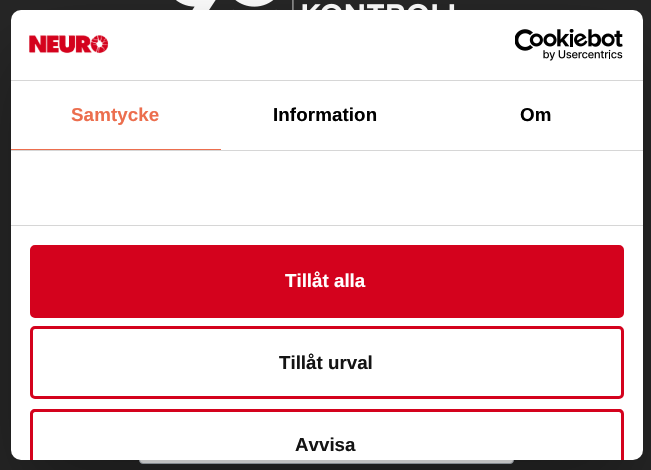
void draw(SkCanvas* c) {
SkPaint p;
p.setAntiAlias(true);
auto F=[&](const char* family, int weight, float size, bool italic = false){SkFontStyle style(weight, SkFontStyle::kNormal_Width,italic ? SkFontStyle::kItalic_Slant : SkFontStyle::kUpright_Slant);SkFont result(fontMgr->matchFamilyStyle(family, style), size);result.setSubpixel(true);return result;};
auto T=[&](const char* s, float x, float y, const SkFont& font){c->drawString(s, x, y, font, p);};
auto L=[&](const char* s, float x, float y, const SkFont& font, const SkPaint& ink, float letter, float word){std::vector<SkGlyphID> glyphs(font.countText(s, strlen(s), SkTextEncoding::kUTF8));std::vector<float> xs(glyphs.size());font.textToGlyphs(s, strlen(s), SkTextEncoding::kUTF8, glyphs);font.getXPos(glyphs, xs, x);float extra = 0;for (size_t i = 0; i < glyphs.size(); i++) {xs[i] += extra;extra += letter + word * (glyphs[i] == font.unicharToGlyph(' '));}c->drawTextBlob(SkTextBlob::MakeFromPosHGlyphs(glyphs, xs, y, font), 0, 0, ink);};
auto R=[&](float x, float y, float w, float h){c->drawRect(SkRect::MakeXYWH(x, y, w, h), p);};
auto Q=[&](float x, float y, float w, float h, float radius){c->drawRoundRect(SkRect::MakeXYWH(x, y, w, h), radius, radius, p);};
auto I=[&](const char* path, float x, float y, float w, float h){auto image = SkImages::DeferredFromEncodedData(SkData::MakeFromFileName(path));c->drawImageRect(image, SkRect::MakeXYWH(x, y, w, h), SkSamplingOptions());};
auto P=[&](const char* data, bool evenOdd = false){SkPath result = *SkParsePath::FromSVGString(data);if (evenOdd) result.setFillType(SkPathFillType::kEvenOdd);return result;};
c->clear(0xff262626);
I("1.png",176,0,279,10);
p.setColor(0xffffffff);
c->drawRoundRect(SkRect::MakeXYWH(139.5,411.5,374,52),3.5,3.5,p);
p.setStroke(true);
p.setStrokeWidth(1);
p.setColor(0xffadb5bd);
c->drawRoundRect(SkRect::MakeXYWH(139.5,411.5,374,52),3.5,3.5,p);
p.setStroke(false);
p.setColor(0x4d000000);
p.setMaskFilter(SkMaskFilter::MakeBlur(kNormal_SkBlurStyle, 42.5));
c->drawRoundRect(SkRect::MakeXYWH(11,50,632,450),10,10,p);
p.setMaskFilter(nullptr);
p.setColor(0xffffffff);
Q(11,10,632,450,10);
p.setColor(0xffd6d6d6);
R(11,80,632,1);
I("2.png",29,35,80,19);
I("3.png",515,29,108,32);
R(11,150,632,1);
p.setColor(0xffec6e4e);
R(11,149,210,1);
auto f1 = F("Liberation Sans",700,18.75);
L("Samtycke",71,121,f1,p,.1,0);
p.setColor(0xff000000);
L("Information",273,121,f1,p,.1,0);
L("Om",520,121,f1,p,.1,0);
p.setColor(0xffd6d6d6);
R(11,225,632,1);
p.setColor(0xffd4021d);
c->drawRoundRect(SkRect::MakeXYWH(31.5,246.5,591,70),3.5,3.5,p);
p.setStroke(true);
p.setStrokeWidth(3);
c->drawRoundRect(SkRect::MakeXYWH(31.5,246.5,591,70),3.5,3.5,p);
p.setStroke(false);
p.setColor(0xffffffff);
T("Tillåt alla",285,287,f1);
p.setStroke(true);
p.setColor(0xffd4021d);
c->drawRoundRect(SkRect::MakeXYWH(31.5,327.5,591,70),3.5,3.5,p);
p.setStroke(false);
p.setColor(0xff141414);
T("Tillåt urval",279,369,f1);
p.setColor(0xffd4021d);
c->drawPath(P("M35 409c-3 0-5 2-5 5v46h3v-46c0-1 1-2 2-2h584c1 0 2 1 2 2v46h3v-46c0-3-2-5-5-5z"),p);
p.setColor(0xff141414);
T("Avvisa",295,451,f1);
}
